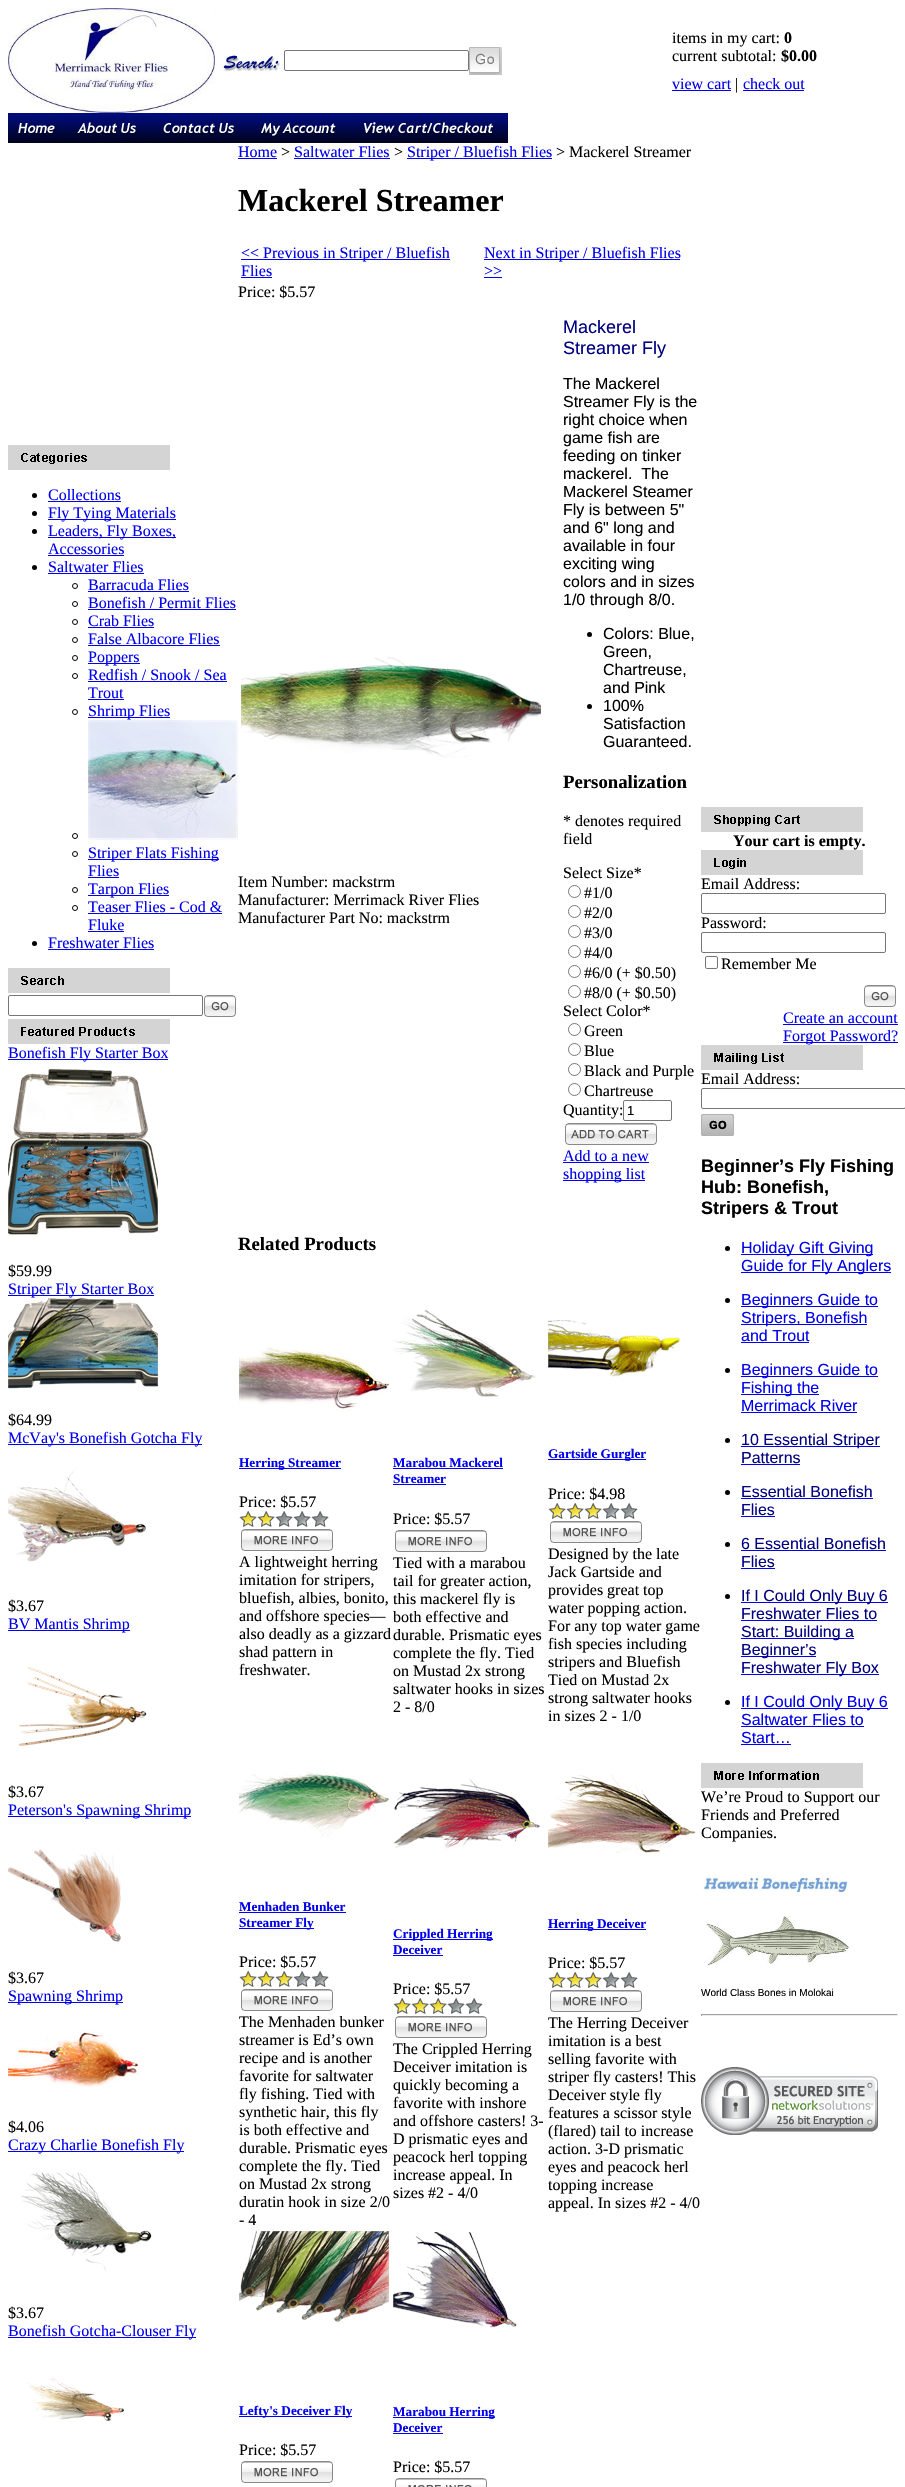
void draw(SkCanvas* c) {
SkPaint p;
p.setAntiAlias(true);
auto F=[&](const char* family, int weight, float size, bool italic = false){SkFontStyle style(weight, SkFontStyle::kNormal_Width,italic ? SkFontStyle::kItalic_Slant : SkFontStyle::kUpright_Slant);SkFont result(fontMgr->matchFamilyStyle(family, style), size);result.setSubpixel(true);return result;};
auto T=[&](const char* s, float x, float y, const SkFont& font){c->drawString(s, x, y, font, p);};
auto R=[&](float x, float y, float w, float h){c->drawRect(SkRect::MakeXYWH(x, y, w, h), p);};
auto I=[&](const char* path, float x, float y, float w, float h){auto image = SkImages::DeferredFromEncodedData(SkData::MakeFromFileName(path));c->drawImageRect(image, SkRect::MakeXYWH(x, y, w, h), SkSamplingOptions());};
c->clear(0xffffffff);
I("1.png",8,8,207,105);
I("2.png",223,55,57,17);
p.setStroke(true);
p.setStrokeWidth(1);
p.setColor(0xff767676);
c->drawRoundRect(SkRect::MakeXYWH(284.5,50.5,184,20),1.5,1.5,p);
I("3.png",469,47,33,28);
auto f1 = F("Liberation Serif",400,16);
p.setStroke(false);
p.setColor(0xff000000);
T("items in my cart:",672,43,f1);
auto f2 = F("Liberation Serif",700,16);
T("0",784,43,f2);
T("current subtotal:",672,61,f1);
T("$0.00",781,61,f2);
p.setColor(0xff0000ee);
T("view cart",672,89,f1);
R(672,90,59,1);
p.setColor(0xff000000);
T("|",735,89,f1);
p.setColor(0xff0000ee);
T("check out",743,89,f1);
R(743,90,61,1);
I("4.png",8,113,58,30);
I("5.png",66,113,84,30);
I("6.png",150,113,97,30);
I("7.png",247,113,102,30);
I("8.png",349,113,159,30);
I("9.png",8,445,162,25);
p.setColor(0xff000000);
c->drawCircle(34.5,495.5,2.5,p);
p.setColor(0xff0000ee);
T("Collections",48,500,f1);
R(48,501,73,1);
p.setColor(0xff000000);
c->drawCircle(34.5,513.5,2.5,p);
p.setColor(0xff0000ee);
R(48,519,128,1);
T("Fly Tying Materials",48,518,f1);
p.setColor(0xff000000);
c->drawCircle(34.5,531.5,2.5,p);
p.setColor(0xff0000ee);
R(48,537,128,1);
T("Leaders, Fly Boxes,",48,536,f1);
T("Accessories",48,554,f1);
R(48,555,76,1);
p.setColor(0xff000000);
c->drawCircle(34.5,567.5,2.5,p);
p.setColor(0xff0000ee);
T("Saltwater Flies",48,572,f1);
R(48,573,96,1);
p.setStroke(true);
p.setColor(0xff000000);
c->drawCircle(75,586,2.5,p);
p.setStroke(false);
p.setColor(0xff0000ee);
T("Barracuda Flies",88,590,f1);
R(88,591,101,1);
p.setStroke(true);
p.setColor(0xff000000);
c->drawCircle(75,604,2.5,p);
p.setStroke(false);
p.setColor(0xff0000ee);
T("Bonefish / Permit Flies",88,608,f1);
R(88,609,148,1);
p.setStroke(true);
p.setColor(0xff000000);
c->drawCircle(75,622,2.5,p);
p.setStroke(false);
p.setColor(0xff0000ee);
T("Crab Flies",88,626,f1);
R(88,627,66,1);
p.setStroke(true);
p.setColor(0xff000000);
c->drawCircle(75,640,2.5,p);
p.setStroke(false);
p.setColor(0xff0000ee);
T("False Albacore Flies",88,644,f1);
R(88,645,132,1);
p.setStroke(true);
p.setColor(0xff000000);
c->drawCircle(75,658,2.5,p);
p.setStroke(false);
p.setColor(0xff0000ee);
R(88,663,52,1);
T("Poppers",88,662,f1);
p.setStroke(true);
p.setColor(0xff000000);
c->drawCircle(75,676,2.5,p);
p.setStroke(false);
p.setColor(0xff0000ee);
T("Redfish / Snook / Sea",88,680,f1);
R(88,681,139,1);
T("Trout",88,698,f1);
R(88,699,36,1);
p.setStroke(true);
p.setColor(0xff000000);
c->drawCircle(75,712,2.5,p);
p.setStroke(false);
p.setColor(0xff0000ee);
R(88,717,82,1);
T("Shrimp Flies",88,716,f1);
p.setStroke(true);
p.setColor(0xff000000);
c->drawCircle(75,836,2.5,p);
I("10.png",88,720,150,120);
c->drawCircle(75,854,2.5,p);
p.setStroke(false);
p.setColor(0xff0000ee);
R(88,859,131,1);
T("Striper Flats Fishing",88,858,f1);
T("Flies",88,876,f1);
R(88,877,31,1);
p.setStroke(true);
p.setColor(0xff000000);
c->drawCircle(75,890,2.5,p);
p.setStroke(false);
p.setColor(0xff0000ee);
R(88,895,81,1);
T("Tarpon Flies",88,894,f1);
p.setStroke(true);
p.setColor(0xff000000);
c->drawCircle(75,908,2.5,p);
p.setStroke(false);
p.setColor(0xff0000ee);
T("Teaser Flies - Cod &",88,912,f1);
R(88,913,134,1);
T("Fluke",88,930,f1);
R(88,931,36,1);
p.setColor(0xff000000);
c->drawCircle(34.5,943.5,2.5,p);
p.setColor(0xff0000ee);
T("Freshwater Flies",48,948,f1);
R(48,949,106,1);
I("11.png",8,968,162,25);
p.setStroke(true);
p.setColor(0xff767676);
c->drawRoundRect(SkRect::MakeXYWH(8.5,995.5,194,20),1.5,1.5,p);
I("12.png",204,995,32,22);
I("13.png",8,1019,162,25);
p.setStroke(false);
p.setColor(0xff0000ee);
R(8,1059,160,1);
T("Bonefish Fly Starter Box",8,1058,f1);
I("14.png",8,1068,150,167);
p.setColor(0xff000000);
T("$59.99",8,1276,f1);
p.setColor(0xff0000ee);
R(8,1295,146,1);
T("Striper Fly Starter Box",8,1294,f1);
I("15.png",8,1298,150,91);
p.setColor(0xff000000);
T("$64.99",8,1425,f1);
p.setColor(0xff0000ee);
R(8,1444,194,1);
T("McVay's Bonefish Gotcha Fly",8,1443,f1);
I("16.png",8,1468,138,94);
p.setColor(0xff000000);
T("$3.67",8,1611,f1);
p.setColor(0xff0000ee);
R(8,1630,122,1);
T("BV Mantis Shrimp",8,1629,f1);
I("17.png",18,1667,129,79);
p.setColor(0xff000000);
T("$3.67",8,1797,f1);
p.setColor(0xff0000ee);
R(8,1816,183,1);
T("Peterson's Spawning Shrimp",8,1815,f1);
I("18.png",8,1849,113,94);
p.setColor(0xff000000);
T("$3.67",8,1983,f1);
p.setColor(0xff0000ee);
R(8,2002,115,1);
T("Spawning Shrimp",8,2001,f1);
I("19.png",8,2031,131,57);
p.setColor(0xff000000);
T("$4.06",8,2132,f1);
p.setColor(0xff0000ee);
R(8,2151,176,1);
T("Crazy Charlie Bonefish Fly",8,2150,f1);
I("20.png",21,2172,131,99);
p.setColor(0xff000000);
T("$3.67",8,2318,f1);
p.setColor(0xff0000ee);
R(8,2337,188,1);
T("Bonefish Gotcha-Clouser Fly",8,2336,f1);
I("21.png",26,2373,98,49);
T("Home",238,157,f1);
R(238,158,39,1);
p.setColor(0xff000000);
T(">",281,157,f1);
p.setColor(0xff0000ee);
T("Saltwater Flies",294,157,f1);
R(294,158,96,1);
p.setColor(0xff000000);
T(">",394,157,f1);
p.setColor(0xff0000ee);
R(407,158,145,1);
T("Striper / Bluefish Flies",407,157,f1);
p.setColor(0xff000000);
T("> Mackerel Streamer",556,157,f1);
auto f3 = F("Liberation Serif",700,32);
T("Mackerel Streamer",238,211,f3);
p.setColor(0xff0000ee);
R(241,259,209,1);
T("<< Previous in Striper / Bluefish",241,258,f1);
T("Flies",241,276,f1);
R(241,277,31,1);
R(484,259,196,1);
T("Next in Striper / Bluefish Flies",484,258,f1);
T(">>",484,276,f1);
R(484,277,18,1);
p.setColor(0xff000000);
T("Price: $5.57",238,297,f1);
I("22.png",241,657,300,101);
T("Item Number: mackstrm",238,887,f1);
T("Manufacturer: Merrimack River Flies",238,905,f1);
T("Manufacturer Part No: mackstrm",238,923,f1);
auto f4 = F("Liberation Sans",400,18);
p.setColor(0xff000080);
T("Mackerel",563,333,f4);
T("Streamer Fly",563,354,f4);
auto f5 = F("Liberation Sans",400,16);
p.setColor(0xff000000);
T("The Mackerel",563,389,f5);
T("Streamer Fly is the",563,407,f5);
T("right choice when",563,425,f5);
T("game fish are",563,443,f5);
T("feeding on tinker",563,461,f5);
T("mackerel.  The",563,479,f5);
T("Mackerel Steamer",563,497,f5);
T("Fly is between 5\"",563,515,f5);
T("and 6\" long and",563,533,f5);
T("available in four",563,551,f5);
T("exciting wing",563,569,f5);
T("colors and in sizes",563,587,f5);
T("1/0 through 8/0.",563,605,f5);
c->drawCircle(589.5,634.5,2.5,p);
T("Colors: Blue,",603,639,f5);
T("Green,",603,657,f5);
T("Chartreuse,",603,675,f5);
T("and Pink",603,693,f5);
c->drawCircle(589.5,706.5,2.5,p);
T("100%",603,711,f5);
T("Satisfaction",603,729,f5);
T("Guaranteed.",603,747,f5);
auto f6 = F("Liberation Serif",700,18.75);
T("Personalization",563,788,f6);
T("* denotes required",563,826,f1);
T("field",563,844,f1);
T("Select Size*",563,878,f1);
p.setStroke(true);
p.setColor(0xff767676);
c->drawCircle(574.5,891.5,6,p);
p.setStroke(false);
p.setColor(0xff000000);
T("#1/0",584,898,f1);
p.setStroke(true);
p.setColor(0xff767676);
c->drawCircle(574.5,911.5,6,p);
p.setStroke(false);
p.setColor(0xff000000);
T("#2/0",584,918,f1);
p.setStroke(true);
p.setColor(0xff767676);
c->drawCircle(574.5,931.5,6,p);
p.setStroke(false);
p.setColor(0xff000000);
T("#3/0",584,938,f1);
p.setStroke(true);
p.setColor(0xff767676);
c->drawCircle(574.5,951.5,6,p);
p.setStroke(false);
p.setColor(0xff000000);
T("#4/0",584,958,f1);
p.setStroke(true);
p.setColor(0xff767676);
c->drawCircle(574.5,971.5,6,p);
p.setStroke(false);
p.setColor(0xff000000);
T("#6/0 (+ $0.50)",584,978,f1);
p.setStroke(true);
p.setColor(0xff767676);
c->drawCircle(574.5,991.5,6,p);
p.setStroke(false);
p.setColor(0xff000000);
T("#8/0 (+ $0.50)",584,998,f1);
T("Select Color*",563,1016,f1);
p.setStroke(true);
p.setColor(0xff767676);
c->drawCircle(574.5,1029.5,6,p);
p.setStroke(false);
p.setColor(0xff000000);
T("Green",584,1036,f1);
p.setStroke(true);
p.setColor(0xff767676);
c->drawCircle(574.5,1049.5,6,p);
p.setStroke(false);
p.setColor(0xff000000);
T("Blue",584,1056,f1);
p.setStroke(true);
p.setColor(0xff767676);
c->drawCircle(574.5,1069.5,6,p);
p.setStroke(false);
p.setColor(0xff000000);
T("Black and Purple",584,1076,f1);
p.setStroke(true);
p.setColor(0xff767676);
c->drawCircle(574.5,1089.5,6,p);
p.setStroke(false);
p.setColor(0xff000000);
T("Chartreuse",584,1096,f1);
T("Quantity:",563,1115,f1);
p.setStroke(true);
p.setColor(0xff767676);
c->drawRoundRect(SkRect::MakeXYWH(623.5,1100.5,48,20),1.5,1.5,p);
auto f7 = F("Liberation Sans",400,13);
p.setStroke(false);
p.setColor(0xff000000);
T("1",627,1115,f7);
I("23.png",565,1123,92,22);
p.setColor(0xff0000ee);
T("Add to a new",563,1161,f1);
R(563,1162,86,1);
R(563,1180,82,1);
T("shopping list",563,1179,f1);
p.setColor(0xff000000);
T("Related Products",238,1250,f6);
I("24.png",239,1346,150,65);
p.setColor(0xff0000ee);
R(239,1468,102,1);
auto f8 = F("Liberation Serif",700,13.25);
T("Herring Streamer",239,1467,f8);
p.setColor(0xff000000);
T("Price: $5.57",239,1507,f1);
I("25.png",239,1511,18,16);
I("25.png",257,1511,18,16);
I("26.png",275,1511,18,16);
I("26.png",293,1511,18,16);
I("26.png",311,1511,18,16);
I("27.png",241,1529,92,22);
T("A lightweight herring",239,1567,f1);
T("imitation for stripers,",239,1585,f1);
T("bluefish, albies, bonito,",239,1603,f1);
T("and offshore species—",239,1621,f1);
T("also deadly as a gizzard",239,1639,f1);
T("shad pattern in",239,1657,f1);
T("freshwater.",239,1675,f1);
I("28.png",393,1310,142,87);
p.setColor(0xff0000ee);
T("Marabou Mackerel",393,1467,f8);
R(393,1468,110,1);
T("Streamer",393,1483,f8);
R(393,1484,53,1);
p.setColor(0xff000000);
T("Price: $5.57",393,1524,f1);
I("27.png",395,1530,92,22);
T("Tied with a marabou",393,1568,f1);
T("tail for greater action,",393,1586,f1);
T("this mackerel fly is",393,1604,f1);
T("both effective and",393,1622,f1);
T("durable. Prismatic eyes",393,1640,f1);
T("complete the fly. Tied",393,1658,f1);
T("on Mustad 2x strong",393,1676,f1);
T("saltwater hooks in sizes",393,1694,f1);
T("2 - 8/0",393,1712,f1);
I("29.png",548,1320,132,57);
p.setColor(0xff0000ee);
R(548,1459,98,1);
T("Gartside Gurgler",548,1458,f8);
p.setColor(0xff000000);
T("Price: $4.98",548,1499,f1);
I("25.png",548,1503,18,16);
I("25.png",566,1503,18,16);
I("25.png",584,1503,18,16);
I("26.png",602,1503,18,16);
I("26.png",620,1503,18,16);
I("27.png",550,1521,92,22);
T("Designed by the late",548,1559,f1);
T("Jack Gartside and",548,1577,f1);
T("provides great top",548,1595,f1);
T("water popping action.",548,1613,f1);
T("For any top water game",548,1631,f1);
T("fish species including",548,1649,f1);
T("stripers and Bluefish",548,1667,f1);
T("Tied on Mustad 2x",548,1685,f1);
T("strong saltwater hooks",548,1703,f1);
T("in sizes 2 - 1/0",548,1721,f1);
I("30.png",239,1772,150,65);
p.setColor(0xff0000ee);
T("Menhaden Bunker",239,1911,f8);
R(239,1912,107,1);
R(239,1928,75,1);
T("Streamer Fly",239,1927,f8);
p.setColor(0xff000000);
T("Price: $5.57",239,1967,f1);
I("25.png",239,1971,18,16);
I("25.png",257,1971,18,16);
I("25.png",275,1971,18,16);
I("26.png",293,1971,18,16);
I("26.png",311,1971,18,16);
I("27.png",241,1989,92,22);
T("The Menhaden bunker",239,2027,f1);
T("streamer is Ed’s own",239,2045,f1);
T("recipe and is another",239,2063,f1);
T("favorite for saltwater",239,2081,f1);
T("fly fishing. Tied with",239,2099,f1);
T("synthetic hair, this fly",239,2117,f1);
T("is both effective and",239,2135,f1);
T("durable. Prismatic eyes",239,2153,f1);
T("complete the fly. Tied",239,2171,f1);
T("on Mustad 2x strong",239,2189,f1);
T("duratin hook in size 2/0",239,2207,f1);
T("- 4",239,2225,f1);
I("31.png",393,1779,147,70);
p.setColor(0xff0000ee);
R(393,1939,100,1);
T("Crippled Herring",393,1938,f8);
T("Deceiver",393,1954,f8);
R(393,1955,50,1);
p.setColor(0xff000000);
T("Price: $5.57",393,1994,f1);
I("25.png",393,1998,18,16);
I("25.png",411,1998,18,16);
I("25.png",429,1998,18,16);
I("26.png",447,1998,18,16);
I("26.png",465,1998,18,16);
I("27.png",395,2016,92,22);
T("The Crippled Herring",393,2054,f1);
T("Deceiver imitation is",393,2072,f1);
T("quickly becoming a",393,2090,f1);
T("favorite with inshore",393,2108,f1);
T("and offshore casters! 3-",393,2126,f1);
T("D prismatic eyes and",393,2144,f1);
T("peacock herl topping",393,2162,f1);
T("increase appeal. In",393,2180,f1);
T("sizes #2 - 4/0",393,2198,f1);
I("32.png",548,1774,148,79);
p.setColor(0xff0000ee);
R(548,1929,98,1);
T("Herring Deceiver",548,1928,f8);
p.setColor(0xff000000);
T("Price: $5.57",548,1968,f1);
I("25.png",548,1972,18,16);
I("25.png",566,1972,18,16);
I("25.png",584,1972,18,16);
I("26.png",602,1972,18,16);
I("26.png",620,1972,18,16);
I("27.png",550,1990,92,22);
T("The Herring Deceiver",548,2028,f1);
T("imitation is a best",548,2046,f1);
T("selling favorite with",548,2064,f1);
T("striper fly casters! This",548,2082,f1);
T("Deceiver style fly",548,2100,f1);
T("features a scissor style",548,2118,f1);
T("(flared) tail to increase",548,2136,f1);
T("action. 3-D prismatic",548,2154,f1);
T("eyes and peacock herl",548,2172,f1);
T("topping increase",548,2190,f1);
T("appeal. In sizes #2 - 4/0",548,2208,f1);
I("33.png",239,2231,150,91);
p.setColor(0xff0000ee);
R(239,2416,113,1);
T("Lefty's Deceiver Fly",239,2415,f8);
p.setColor(0xff000000);
T("Price: $5.57",239,2455,f1);
I("27.png",241,2461,92,22);
I("34.png",393,2232,124,96);
p.setColor(0xff0000ee);
R(393,2417,102,1);
T("Marabou Herring",393,2416,f8);
T("Deceiver",393,2432,f8);
R(393,2433,50,1);
p.setColor(0xff000000);
T("Price: $5.57",393,2472,f1);
I("35.png",395,2478,92,9);
I("36.png",701,807,162,25);
T("Your cart is empty.",733,846,f2);
I("37.png",701,850,162,25);
T("Email Address:",701,889,f1);
p.setStroke(true);
p.setColor(0xff767676);
c->drawRoundRect(SkRect::MakeXYWH(701.5,893.5,184,20),1.5,1.5,p);
p.setStroke(false);
p.setColor(0xff000000);
T("Password:",701,928,f1);
p.setStroke(true);
p.setColor(0xff767676);
c->drawRoundRect(SkRect::MakeXYWH(701.5,932.5,184,20),1.5,1.5,p);
c->drawRoundRect(SkRect::MakeXYWH(705.5,956.5,12,12),1.5,1.5,p);
p.setStroke(false);
p.setColor(0xff000000);
T("Remember Me",721,969,f1);
I("12.png",864,985,32,22);
p.setColor(0xff0000ee);
T("Create an account",783,1023,f1);
R(783,1024,115,1);
R(783,1042,115,1);
T("Forgot Password?",783,1041,f1);
I("38.png",701,1045,162,25);
p.setColor(0xff000000);
T("Email Address:",701,1084,f1);
p.setStroke(true);
p.setColor(0xff767676);
c->drawRoundRect(SkRect::MakeXYWH(701.5,1088.5,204,20),1.5,1.5,p);
I("39.png",701,1114,33,22);
auto f9 = F("Liberation Sans",700,18);
p.setStroke(false);
p.setColor(0xff000000);
T("Beginner’s Fly Fishing",701,1172,f9);
T("Hub: Bonefish,",701,1193,f9);
T("Stripers & Trout",701,1214,f9);
c->drawCircle(727.5,1248.5,2.5,p);
p.setColor(0xff0000ee);
R(741,1254,132,1);
T("Holiday Gift Giving",741,1253,f5);
R(741,1272,150,1);
T("Guide for Fly Anglers",741,1271,f5);
p.setColor(0xff000000);
c->drawCircle(727.5,1300.5,2.5,p);
p.setColor(0xff0000ee);
R(741,1306,137,1);
T("Beginners Guide to",741,1305,f5);
R(741,1324,126,1);
T("Stripers, Bonefish",741,1323,f5);
T("and Trout",741,1341,f5);
R(741,1342,68,1);
p.setColor(0xff000000);
c->drawCircle(727.5,1370.5,2.5,p);
p.setColor(0xff0000ee);
R(741,1376,137,1);
T("Beginners Guide to",741,1375,f5);
R(741,1394,78,1);
T("Fishing the",741,1393,f5);
T("Merrimack River",741,1411,f5);
R(741,1412,116,1);
p.setColor(0xff000000);
c->drawCircle(727.5,1440.5,2.5,p);
p.setColor(0xff0000ee);
R(741,1446,139,1);
p.setColor(0xff000080);
T("10 Essential Striper",741,1445,f5);
T("Patterns",741,1463,f5);
p.setColor(0xff0000ee);
R(741,1464,59,1);
p.setColor(0xff000000);
c->drawCircle(727.5,1492.5,2.5,p);
p.setColor(0xff000080);
T("Essential Bonefish",741,1497,f5);
p.setColor(0xff0000ee);
R(741,1498,132,1);
p.setColor(0xff000080);
T("Flies",741,1515,f5);
p.setColor(0xff0000ee);
R(741,1516,34,1);
p.setColor(0xff000000);
c->drawCircle(727.5,1544.5,2.5,p);
p.setColor(0xff000080);
T("6 Essential Bonefish",741,1549,f5);
p.setColor(0xff0000ee);
R(741,1550,145,1);
p.setColor(0xff000080);
T("Flies",741,1567,f5);
p.setColor(0xff0000ee);
R(741,1568,34,1);
p.setColor(0xff000000);
c->drawCircle(727.5,1596.5,2.5,p);
p.setColor(0xff0000ee);
R(741,1602,147,1);
p.setColor(0xff000080);
T("If I Could Only Buy 6",741,1601,f5);
T("Freshwater Flies to",741,1619,f5);
p.setColor(0xff0000ee);
R(741,1620,136,1);
R(741,1638,113,1);
p.setColor(0xff000080);
T("Start: Building a",741,1637,f5);
p.setColor(0xff0000ee);
R(741,1656,75,1);
p.setColor(0xff000080);
T("Beginner’s",741,1655,f5);
p.setColor(0xff0000ee);
R(741,1674,138,1);
p.setColor(0xff000080);
T("Freshwater Fly Box",741,1673,f5);
p.setColor(0xff000000);
c->drawCircle(727.5,1702.5,2.5,p);
p.setColor(0xff0000ee);
R(741,1708,147,1);
T("If I Could Only Buy 6",741,1707,f5);
T("Saltwater Flies to",741,1725,f5);
R(741,1726,123,1);
T("Start…",741,1743,f5);
R(741,1744,50,1);
I("40.png",701,1763,162,25);
p.setColor(0xff000000);
T("We’re Proud to Support our",701,1802,f1);
T("Friends and Preferred",701,1820,f1);
T("Companies.",701,1838,f1);
I("41.png",701,1874,148,20);
I("42.png",705,1916,144,53);
auto f10 = F("Liberation Sans",400,10);
T("World Class Bones in Molokai",701,1996,f10);
p.setColor(0xff9f9f9f);
R(701,2014,197,1);
p.setColor(0xffeeeeee);
R(897,2014,1,2);
R(701,2015,197,1);
p.setColor(0xff9f9f9f);
R(701,2014,1,2);
I("43.png",701,2067,177,68);
}
